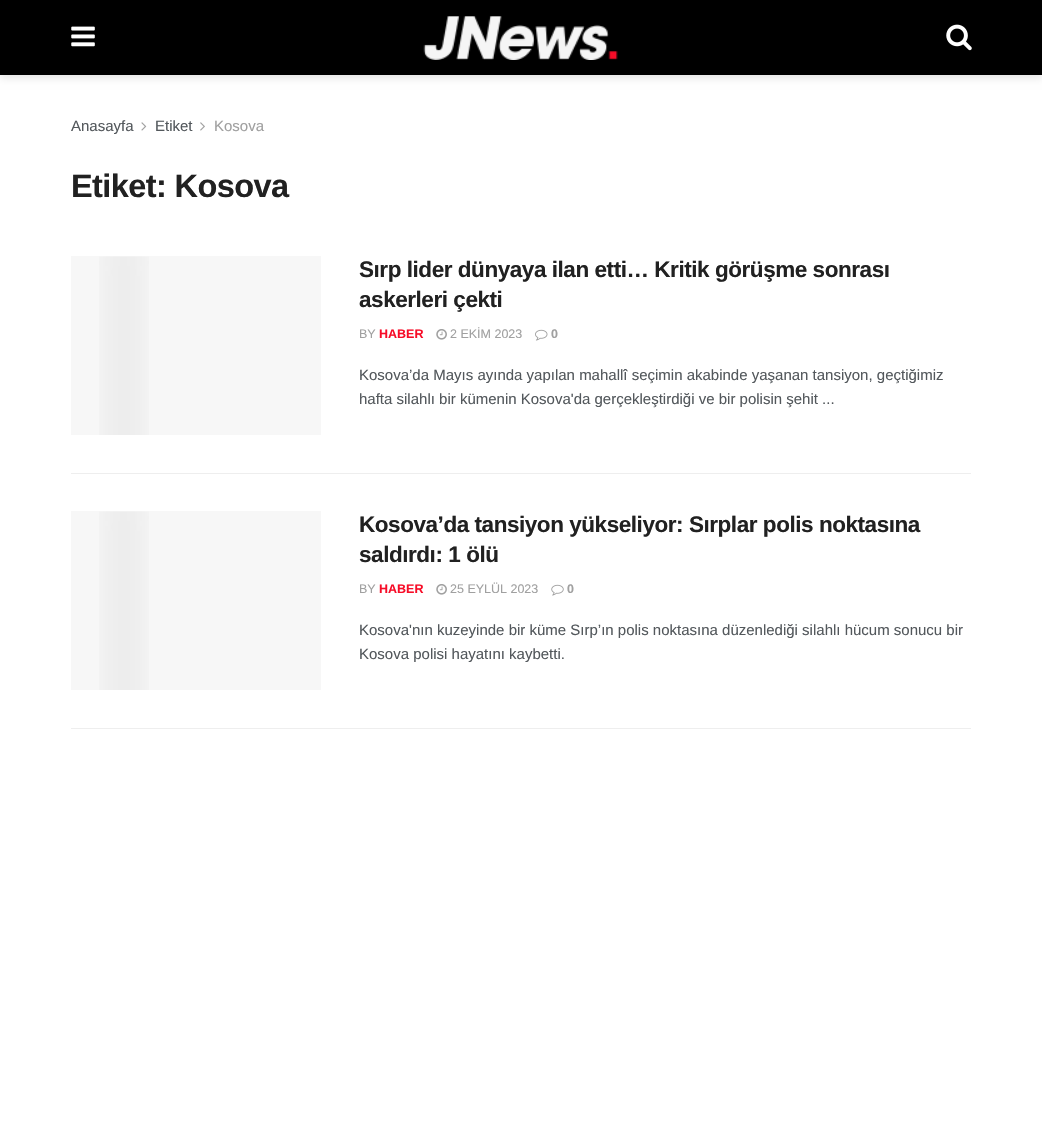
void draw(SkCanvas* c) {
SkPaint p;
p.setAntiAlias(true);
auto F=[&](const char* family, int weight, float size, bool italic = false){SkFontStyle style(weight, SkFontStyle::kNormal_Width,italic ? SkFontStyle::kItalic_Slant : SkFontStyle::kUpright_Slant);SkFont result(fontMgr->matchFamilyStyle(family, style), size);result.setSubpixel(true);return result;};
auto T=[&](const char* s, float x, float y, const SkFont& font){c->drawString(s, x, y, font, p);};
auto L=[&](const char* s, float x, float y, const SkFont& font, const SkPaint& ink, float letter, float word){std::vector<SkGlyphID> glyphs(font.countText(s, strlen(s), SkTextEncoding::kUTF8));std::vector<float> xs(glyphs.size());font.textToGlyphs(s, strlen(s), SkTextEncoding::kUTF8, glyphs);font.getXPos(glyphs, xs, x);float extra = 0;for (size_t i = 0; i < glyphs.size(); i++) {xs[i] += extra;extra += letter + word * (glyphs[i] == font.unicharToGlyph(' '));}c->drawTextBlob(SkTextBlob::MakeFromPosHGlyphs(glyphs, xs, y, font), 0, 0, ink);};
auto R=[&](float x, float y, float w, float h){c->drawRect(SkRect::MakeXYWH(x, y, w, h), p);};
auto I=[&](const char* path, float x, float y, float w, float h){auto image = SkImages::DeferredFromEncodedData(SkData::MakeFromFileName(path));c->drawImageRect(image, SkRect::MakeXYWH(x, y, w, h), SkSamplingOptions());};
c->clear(0xffffffff);
p.setColor(0x1a000000);
p.setMaskFilter(SkMaskFilter::MakeBlur(kNormal_SkBlurStyle, 4));
c->drawRect(SkRect::MakeXYWH(0,3,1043,75),p);
p.setMaskFilter(nullptr);
p.setColor(0xff000000);
R(0,0,1042,75);
I("1.png",71,26,24,21);
I("2.png",423,16,195,44);
I("3.png",946,24,26,27);
auto f1 = F("Liberation Sans",400,15);
p.setColor(0xff53585c);
T("Anasayfa",71,131,f1);
I("4.png",141,122,6,9);
T("Etiket",155,131,f1);
I("5.png",200,122,5,9);
p.setColor(0xffa0a0a0);
T("Kosova",214,131,f1);
auto f2 = F("Liberation Sans",700,32.5);
p.setColor(0xff212121);
L("Etiket: Kosova",71,197,f2,p,-.6,0);
p.setColor(0xffeeeeee);
R(71,473,900,1);
p.setColor(0xfff7f7f7);
R(71,256,250,179);
I("6.png",99,256,50,179);
auto f3 = F("Liberation Sans",700,22.5);
p.setColor(0xff212121);
L("Sırp lider dünyaya ilan etti… Kritik görüşme sonrası",359,277,f3,p,-.45,0);
L("askerleri çekti",359,307,f3,p,-.45,0);
auto f4 = F("Liberation Sans",400,12.5);
p.setColor(0xffa0a0a0);
T("BY",359,338,f4);
auto f5 = F("Liberation Sans",700,12.5);
p.setColor(0xfff70d28);
T("HABER",379,338,f5);
I("7.png",436,329,11,11);
p.setColor(0xffa0a0a0);
T("2 EKİM 2023",450,338,f4);
I("8.png",535,329,13,12);
T("0",551,338,f5);
p.setColor(0xff53585c);
T("Kosova’da Mayıs ayında yapılan mahallî seçimin akabinde yaşanan tansiyon, geçtiğimiz",359,380,f1);
T("hafta silahlı bir kümenin Kosova'da gerçekleştirdiği ve bir polisin şehit ...",359,404,f1);
p.setColor(0xffeeeeee);
R(71,728,900,1);
p.setColor(0xfff7f7f7);
R(71,511,250,179);
I("6.png",99,511,50,179);
p.setColor(0xff212121);
L("Kosova’da tansiyon yükseliyor: Sırplar polis noktasına",359,532,f3,p,-.45,0);
L("saldırdı: 1 ölü",359,562,f3,p,-.45,0);
p.setColor(0xffa0a0a0);
T("BY",359,593,f4);
p.setColor(0xfff70d28);
T("HABER",379,593,f5);
I("7.png",436,584,11,11);
p.setColor(0xffa0a0a0);
T("25 EYLÜL 2023",450,593,f4);
I("9.png",551,584,13,12);
T("0",567,593,f5);
p.setColor(0xff53585c);
T("Kosova'nın kuzeyinde bir küme Sırp’ın polis noktasına düzenlediği silahlı hücum sonucu bir",359,635,f1);
T("Kosova polisi hayatını kaybetti.",359,659,f1);
}
